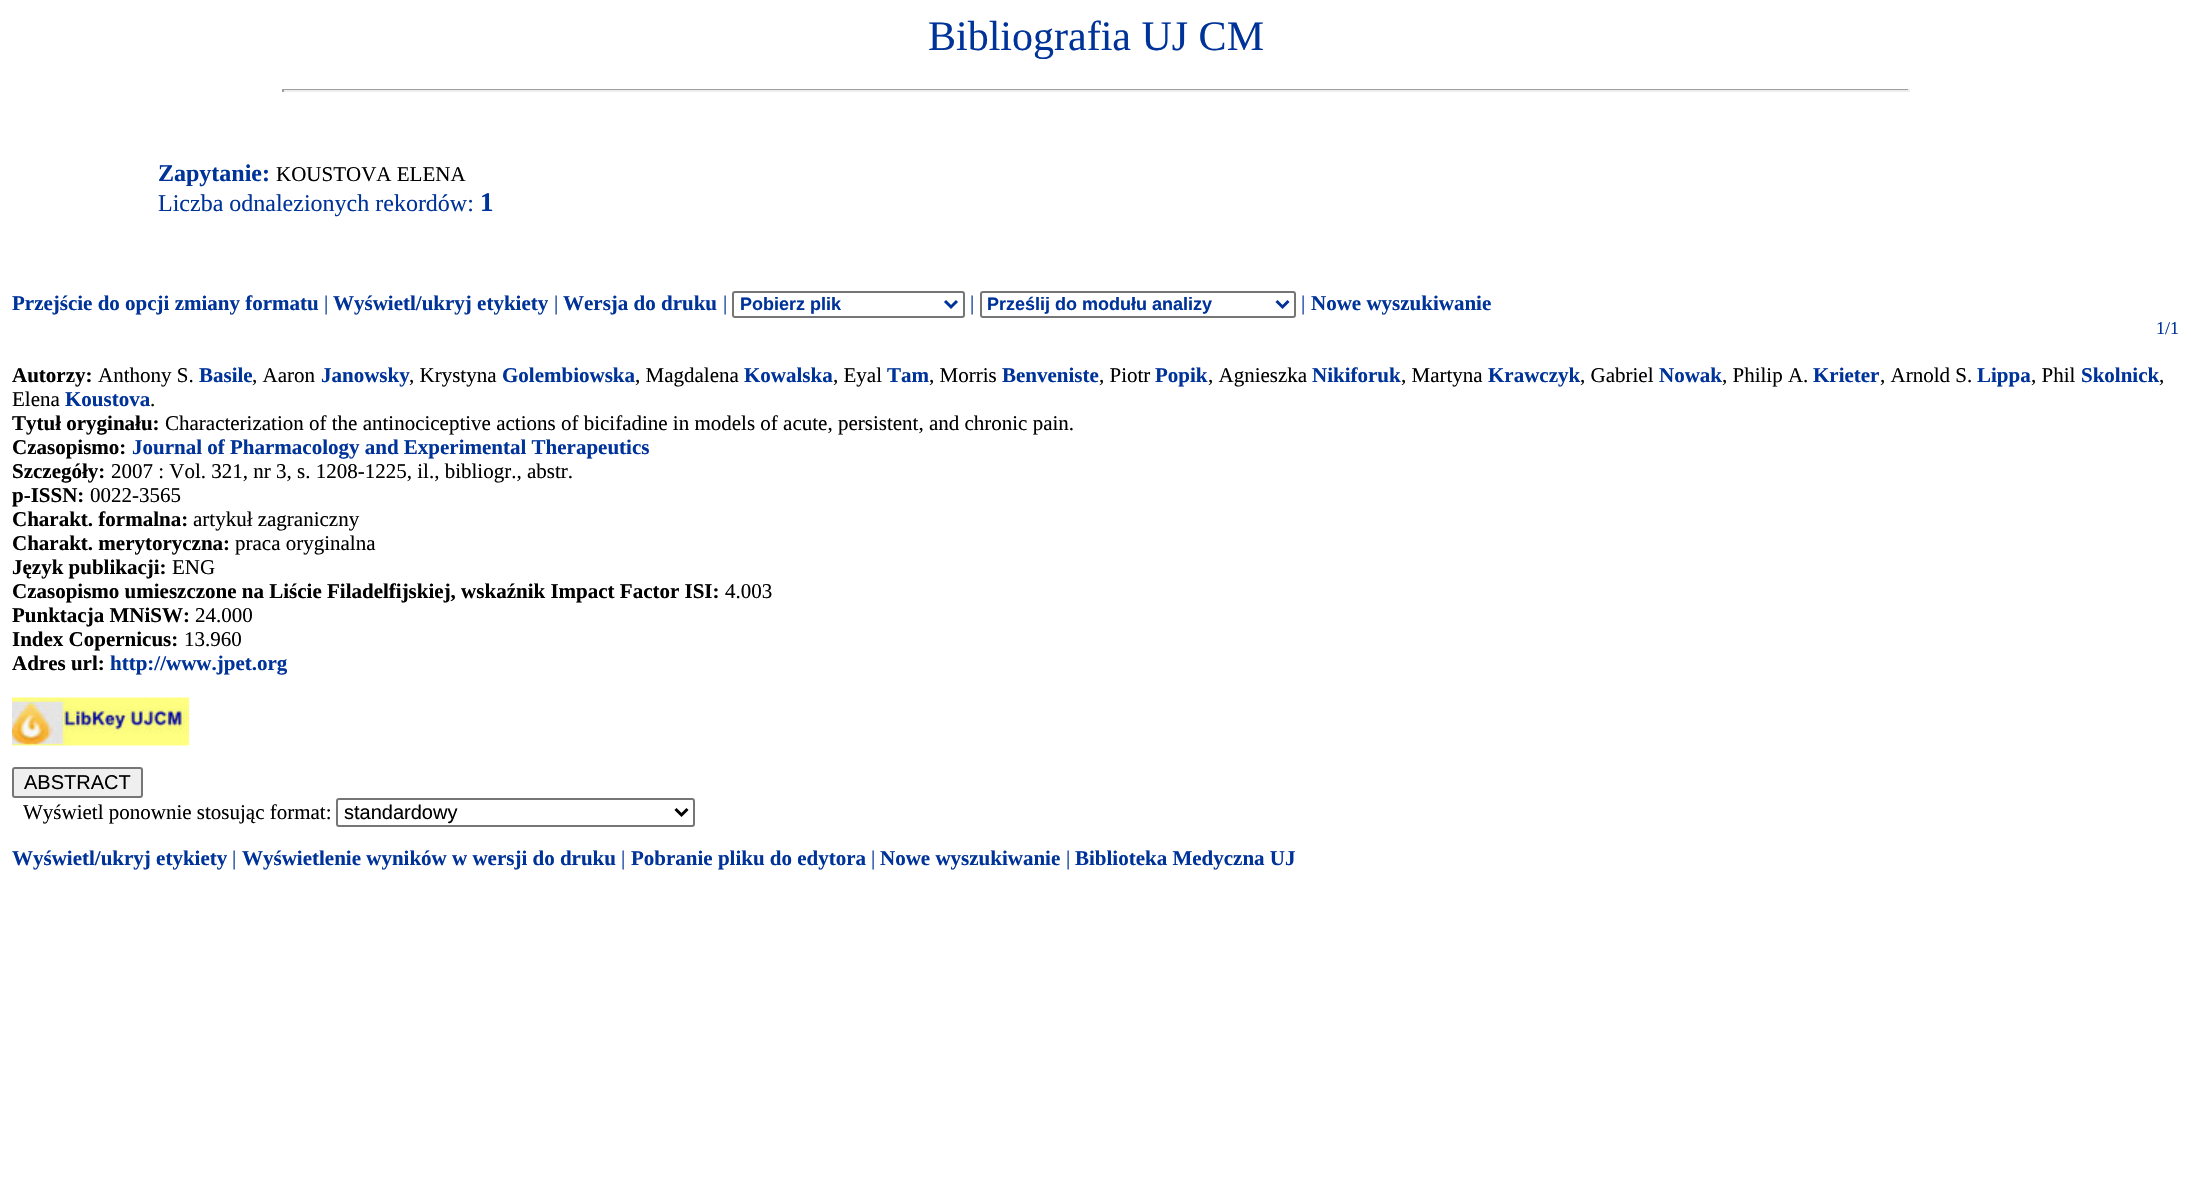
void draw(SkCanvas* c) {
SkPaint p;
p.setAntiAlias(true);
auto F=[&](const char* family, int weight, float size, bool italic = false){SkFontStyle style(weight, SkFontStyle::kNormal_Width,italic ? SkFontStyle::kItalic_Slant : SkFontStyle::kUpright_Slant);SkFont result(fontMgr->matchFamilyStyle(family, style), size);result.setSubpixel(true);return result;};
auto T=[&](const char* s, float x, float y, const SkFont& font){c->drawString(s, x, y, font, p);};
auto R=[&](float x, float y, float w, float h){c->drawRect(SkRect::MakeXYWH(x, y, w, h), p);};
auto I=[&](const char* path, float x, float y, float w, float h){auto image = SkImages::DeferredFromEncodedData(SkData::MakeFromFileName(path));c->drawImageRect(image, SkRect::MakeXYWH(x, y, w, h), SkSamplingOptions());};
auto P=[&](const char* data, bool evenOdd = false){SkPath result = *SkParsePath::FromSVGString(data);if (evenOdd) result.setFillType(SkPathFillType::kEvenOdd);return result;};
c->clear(0xffffffff);
auto f1 = F("Liberation Serif",400,42);
p.setColor(0xff003399);
T("Bibliografia UJ CM",928,50,f1);
p.setColor(0xff9f9f9f);
R(282,89,1628,1);
p.setColor(0xffeeeeee);
R(1908,89,2,3);
R(282,90,1628,2);
p.setColor(0xff9f9f9f);
R(282,89,2,3);
auto f2 = F("Liberation Serif",700,24);
p.setColor(0xff003399);
T("Zapytanie:",158,181,f2);
auto f3 = F("Liberation Serif",400,21);
p.setColor(0xff000000);
T("KOUSTOVA ELENA",276,181,f3);
auto f4 = F("Liberation Serif",400,24);
p.setColor(0xff003399);
T("Liczba odnalezionych rekordów:",158,211,f4);
auto f5 = F("Liberation Serif",700,27);
T("1",480,211,f5);
auto f6 = F("Liberation Serif",700,21);
T("Przejście do opcji zmiany formatu",12,310,f6);
T("|",324,310,f3);
T("Wyświetl/ukryj etykiety",333,310,f6);
T("|",554,310,f3);
T("Wersja do druku",563,310,f6);
T("|",723,310,f3);
p.setStroke(true);
p.setStrokeWidth(2);
p.setColor(0xff767676);
c->drawRoundRect(SkRect::MakeXYWH(733,292,231,25),2,2,p);
p.setStrokeWidth(3);
p.setColor(0xff003399);
c->drawPath(P("M945 301l6 6l6-6"),p);
auto f7 = F("Liberation Sans",700,18);
p.setStroke(false);
T("Pobierz plik",740,310,f7);
T("|",970,310,f3);
p.setStroke(true);
p.setStrokeWidth(2);
p.setColor(0xff767676);
c->drawRoundRect(SkRect::MakeXYWH(981,292,314,25),2,2,p);
p.setStrokeWidth(3);
p.setColor(0xff003399);
c->drawPath(P("M1276.5 301l6 6l6-6"),p);
p.setStroke(false);
T("Prześlij do modułu analizy",987,310,f7);
T("|",1301,310,f3);
T("Nowe wyszukiwanie",1311,310,f6);
auto f8 = F("Liberation Serif",400,18);
T("1/1",2156,334,f8);
p.setColor(0xff000000);
T("Autorzy:",12,382,f6);
T("Anthony S.",98,382,f3);
p.setColor(0xff003399);
T("Basile",199,382,f6);
p.setColor(0xff000000);
T(", Aaron",252,382,f3);
p.setColor(0xff003399);
T("Janowsky",321,382,f6);
p.setColor(0xff000000);
T(", Krystyna",409,382,f3);
p.setColor(0xff003399);
T("Golembiowska",502,382,f6);
p.setColor(0xff000000);
T(", Magdalena",635,382,f3);
p.setColor(0xff003399);
T("Kowalska",744,382,f6);
p.setColor(0xff000000);
T(", Eyal",833,382,f3);
p.setColor(0xff003399);
T("Tam",887,382,f6);
p.setColor(0xff000000);
T(", Morris",929,382,f3);
p.setColor(0xff003399);
T("Benveniste",1002,382,f6);
p.setColor(0xff000000);
T(", Piotr",1099,382,f3);
p.setColor(0xff003399);
T("Popik",1155,382,f6);
p.setColor(0xff000000);
T(", Agnieszka",1208,382,f3);
p.setColor(0xff003399);
T("Nikiforuk",1312,382,f6);
p.setColor(0xff000000);
T(", Martyna",1401,382,f3);
p.setColor(0xff003399);
T("Krawczyk",1488,382,f6);
p.setColor(0xff000000);
T(", Gabriel",1580,382,f3);
p.setColor(0xff003399);
T("Nowak",1659,382,f6);
p.setColor(0xff000000);
T(", Philip A.",1722,382,f3);
p.setColor(0xff003399);
T("Krieter",1813,382,f6);
p.setColor(0xff000000);
T(", Arnold S.",1880,382,f3);
p.setColor(0xff003399);
T("Lippa",1977,382,f6);
p.setColor(0xff000000);
T(", Phil",2031,382,f3);
p.setColor(0xff003399);
T("Skolnick",2081,382,f6);
p.setColor(0xff000000);
T(",",2159,382,f3);
T("Elena",12,406,f3);
p.setColor(0xff003399);
T("Koustova",65,406,f6);
p.setColor(0xff000000);
T(".",150,406,f3);
T("Tytuł oryginału:",12,430,f6);
T("Characterization of the antinociceptive actions of bicifadine in models of acute, persistent, and chronic pain.",165,430,f3);
T("Czasopismo:",12,454,f6);
p.setColor(0xff003399);
T("Journal of Pharmacology and Experimental Therapeutics",132,454,f6);
p.setColor(0xff000000);
T("Szczegóły:",12,478,f6);
T("2007 : Vol. 321, nr 3, s. 1208-1225, il., bibliogr., abstr.",111,478,f3);
T("p-ISSN:",12,502,f6);
T("0022-3565",90,502,f3);
T("Charakt. formalna:",12,526,f6);
T("artykuł zagraniczny",193,526,f3);
T("Charakt. merytoryczna:",12,550,f6);
T("praca oryginalna",235,550,f3);
T("Język publikacji:",12,574,f6);
T("ENG",172,574,f3);
T("Czasopismo umieszczone na Liście Filadelfijskiej, wskaźnik Impact Factor ISI:",12,598,f6);
T("4.003",725,598,f3);
T("Punktacja MNiSW:",12,622,f6);
T("24.000",195,622,f3);
T("Index Copernicus:",12,646,f6);
T("13.960",184,646,f3);
T("Adres url:",12,670,f6);
p.setColor(0xff003399);
T("http://www.jpet.org",110,670,f6);
I("1.png",12,697,177,49);
p.setColor(0xffefefef);
c->drawRoundRect(SkRect::MakeXYWH(13,768,129,29),2,2,p);
p.setStroke(true);
p.setStrokeWidth(2);
p.setColor(0xff767676);
c->drawRoundRect(SkRect::MakeXYWH(13,768,129,29),2,2,p);
auto f9 = F("Liberation Sans",400,20);
p.setStroke(false);
p.setColor(0xff000000);
T("ABSTRACT",24,789,f9);
T("Wyświetl ponownie stosując format:",23,819,f3);
p.setStroke(true);
p.setColor(0xff767676);
c->drawRoundRect(SkRect::MakeXYWH(337,799,357,27),2,2,p);
p.setStrokeWidth(3);
p.setColor(0xff000000);
c->drawPath(P("M675.5 809l6 6l6-6"),p);
p.setStroke(false);
T("standardowy",344,819,f9);
p.setColor(0xff003399);
T("Wyświetl/ukryj etykiety",12,865,f6);
T("|",232,865,f3);
T("Wyświetlenie wyników w wersji do druku",242,865,f6);
T("|",621,865,f3);
T("Pobranie pliku do edytora",631,865,f6);
T("|",871,865,f3);
T("Nowe wyszukiwanie",880,865,f6);
T("|",1066,865,f3);
T("Biblioteka Medyczna UJ",1075,865,f6);
}
